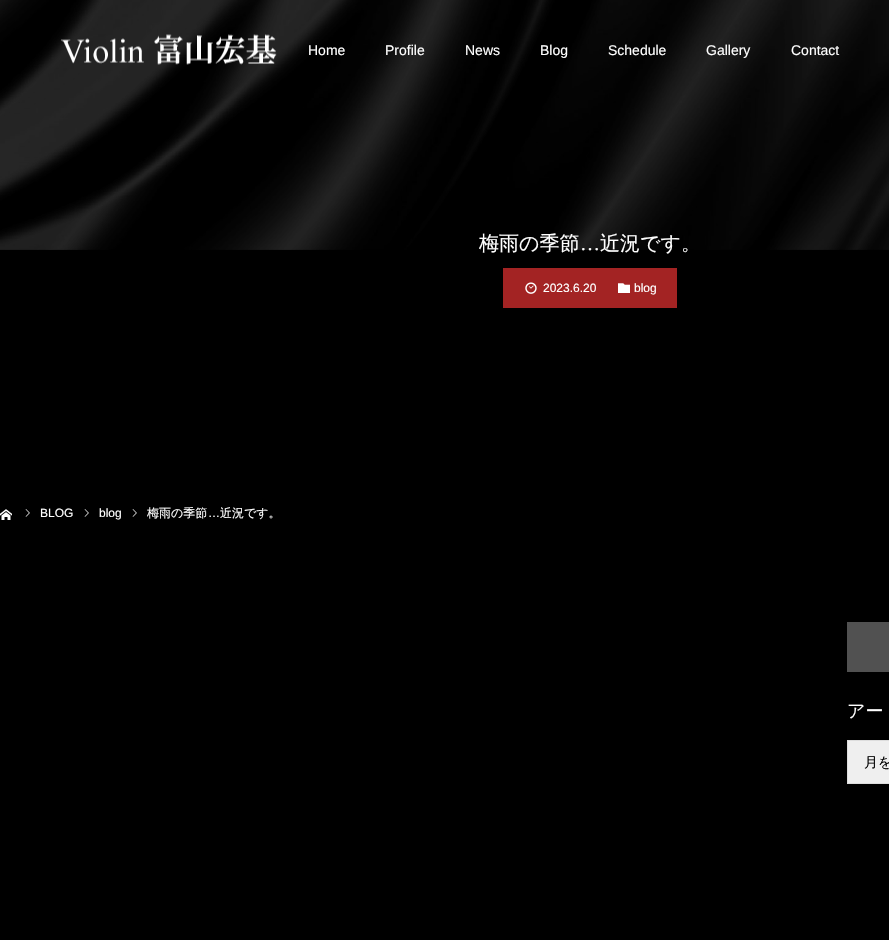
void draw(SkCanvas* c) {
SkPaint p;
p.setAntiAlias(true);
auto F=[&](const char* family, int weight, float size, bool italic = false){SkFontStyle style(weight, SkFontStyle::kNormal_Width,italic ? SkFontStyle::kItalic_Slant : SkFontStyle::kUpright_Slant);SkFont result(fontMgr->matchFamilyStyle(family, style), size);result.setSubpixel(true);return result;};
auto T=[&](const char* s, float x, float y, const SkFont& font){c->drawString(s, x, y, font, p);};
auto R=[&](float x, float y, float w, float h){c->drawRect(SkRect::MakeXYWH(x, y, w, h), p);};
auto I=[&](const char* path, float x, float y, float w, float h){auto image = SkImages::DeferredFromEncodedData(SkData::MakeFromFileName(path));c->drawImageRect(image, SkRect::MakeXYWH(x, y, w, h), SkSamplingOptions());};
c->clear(0xff000000);
I("2.png",0,0,889,250);
I("1.png",61,34,216,31);
auto f1 = F("Liberation Sans",400,14);
p.setColor(0xffffffff);
T("Home",308,55,f1);
T("Profile",385,55,f1);
T("News",465,55,f1);
T("Blog",540,55,f1);
T("Schedule",608,55,f1);
T("Gallery",706,55,f1);
T("Contact",791,55,f1);
auto f2 = F("WenQuanYi Zen Hei",500,20);
T("梅雨の季節",479,250,f2);
auto f3 = F("Liberation Serif",400,20);
T("…",580,250,f3);
T("近況です。",600,250,f2);
p.setColor(0xffa32323);
R(503,268,174,40);
I("3.png",525,282,12,12);
auto f4 = F("Liberation Sans",400,12);
p.setColor(0xffffffff);
T("2023.6.20",543,292,f4);
I("4.png",618,283,12,10);
T("blog",634,292,f4);
I("5.png",0,509,12,11);
I("6.png",25,509,5,8);
T("BLOG",40,517,f4);
I("6.png",84,509,5,8);
T("blog",99,517,f4);
I("6.png",132,509,5,8);
auto f5 = F("WenQuanYi Zen Hei",500,12);
T("梅雨の季節",147,517,f5);
T("…",208,517,f4);
T("近況です。",220,517,f5);
p.setColor(0xff515151);
R(847,622,42,50);
auto f6 = F("WenQuanYi Zen Hei",500,18);
p.setColor(0xffffffff);
T("アー",847,717,f6);
p.setColor(0xffefefef);
c->drawRect(SkRect::MakeXYWH(847.5,740.5,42,43),p);
p.setStroke(true);
p.setStrokeWidth(1);
p.setColor(0xffdddddd);
c->drawRect(SkRect::MakeXYWH(847.5,740.5,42,43),p);
auto f7 = F("WenQuanYi Zen Hei",500,14);
p.setStroke(false);
p.setColor(0xff000000);
T("月を",864,767,f7);
}
